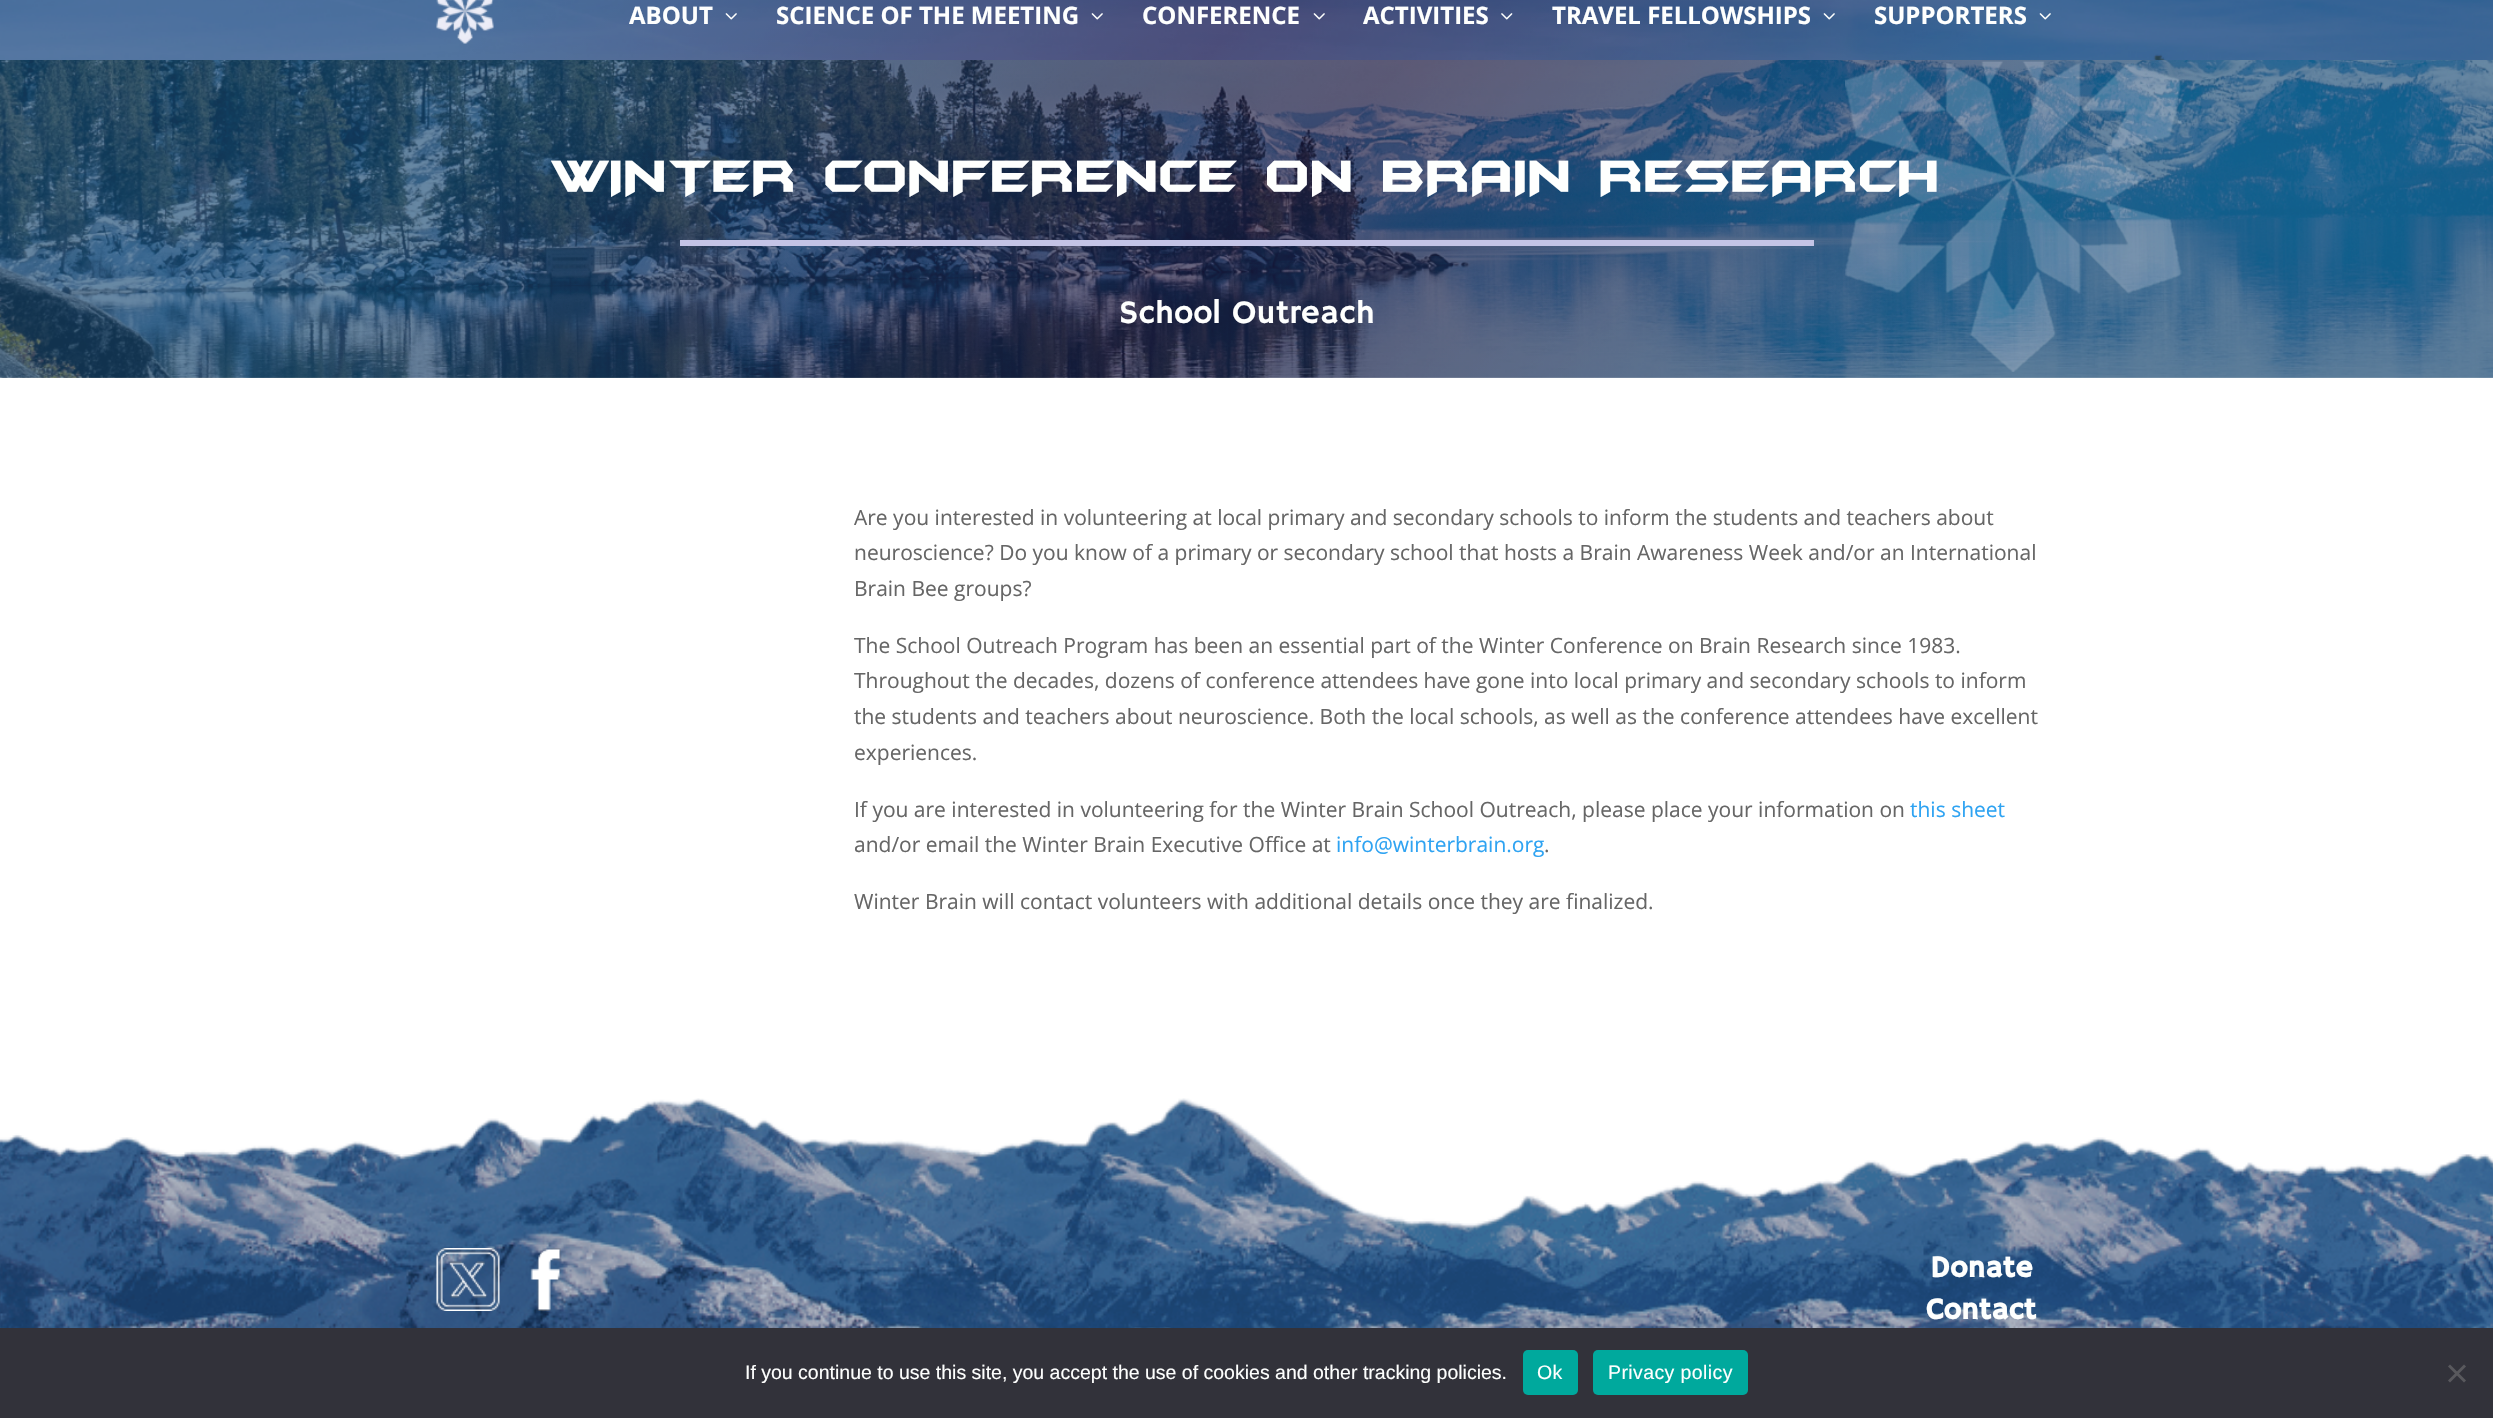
void draw(SkCanvas* c) {
SkPaint p;
p.setAntiAlias(true);
auto F=[&](const char* family, int weight, float size, bool italic = false){SkFontStyle style(weight, SkFontStyle::kNormal_Width,italic ? SkFontStyle::kItalic_Slant : SkFontStyle::kUpright_Slant);SkFont result(fontMgr->matchFamilyStyle(family, style), size);result.setSubpixel(true);return result;};
auto T=[&](const char* s, float x, float y, const SkFont& font){c->drawString(s, x, y, font, p);};
auto L=[&](const char* s, float x, float y, const SkFont& font, const SkPaint& ink, float letter, float word){std::vector<SkGlyphID> glyphs(font.countText(s, strlen(s), SkTextEncoding::kUTF8));std::vector<float> xs(glyphs.size());font.textToGlyphs(s, strlen(s), SkTextEncoding::kUTF8, glyphs);font.getXPos(glyphs, xs, x);float extra = 0;for (size_t i = 0; i < glyphs.size(); i++) {xs[i] += extra;extra += letter + word * (glyphs[i] == font.unicharToGlyph(' '));}c->drawTextBlob(SkTextBlob::MakeFromPosHGlyphs(glyphs, xs, y, font), 0, 0, ink);};
auto R=[&](float x, float y, float w, float h){c->drawRect(SkRect::MakeXYWH(x, y, w, h), p);};
auto Q=[&](float x, float y, float w, float h, float radius){c->drawRoundRect(SkRect::MakeXYWH(x, y, w, h), radius, radius, p);};
auto I=[&](const char* path, float x, float y, float w, float h){auto image = SkImages::DeferredFromEncodedData(SkData::MakeFromFileName(path));c->drawImageRect(image, SkRect::MakeXYWH(x, y, w, h), SkSamplingOptions());};
auto P=[&](const char* data, bool evenOdd = false){SkPath result = *SkParsePath::FromSVGString(data);if (evenOdd) result.setFillType(SkPathFillType::kEvenOdd);return result;};
c->clear(0xffffffff);
I("1.png",0,0,2493,60);
I("2.png",436,0,58,44);
auto f1 = F("Open Sans",700,24);
p.setColor(0xfffefffe);
T("ABOUT",629,24,f1);
I("3.png",725,13,12,7);
T("SCIENCE OF THE MEETING",776,24,f1);
I("4.png",1091,13,12,7);
T("CONFERENCE",1142,24,f1);
I("5.png",1313,13,12,7);
T("ACTIVITIES",1363,24,f1);
I("6.png",1501,13,12,7);
T("TRAVEL FELLOWSHIPS",1552,24,f1);
I("7.png",1823,13,12,7);
T("SUPPORTERS",1874,24,f1);
I("8.png",2039,13,12,7);
I("9.png",0,60,2493,318);
I("10.png",1845,61,337,311);
auto f2 = F("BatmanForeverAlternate",400,52.5);
T("WINTER CONFERENCE ON BRAIN RESEARCH",552,192,f2);
p.setColor(0xffc4c4e6);
R(680,240,1134,6);
auto f3 = F("Hammersmith One",400,33);
p.setColor(0xfffefffe);
T("School Outreach",1119,323,f3);
auto f4 = F("Open Sans",400,21);
p.setColor(0xff666666);
T("Are you interested in volunteering at local primary and secondary schools to inform the students and teachers about",854,525,f4);
T("neuroscience? Do you know of a primary or secondary school that hosts a Brain Awareness Week and/or an International",854,560,f4);
T("Brain Bee groups?",854,596,f4);
T("The School Outreach Program has been an essential part of the Winter Conference on Brain Research since 1983.",854,653,f4);
T("Throughout the decades, dozens of conference attendees have gone into local primary and secondary schools to inform",854,688,f4);
T("the students and teachers about neuroscience. Both the local schools, as well as the conference attendees have excellent",854,724,f4);
T("experiences.",854,760,f4);
T("If you are interested in volunteering for the Winter Brain School Outreach, please place your information on",854,817,f4);
p.setColor(0xff2ea3f2);
T("this sheet",1910,817,f4);
p.setColor(0xff666666);
T("and/or email the Winter Brain Executive Office at",854,852,f4);
p.setColor(0xff2ea3f2);
T("info@winterbrain.org",1336,852,f4);
p.setColor(0xff666666);
T(".",1544,852,f4);
T("Winter Brain will contact volunteers with additional details once they are finalized.",854,909,f4);
I("11.png",0,1098,2493,230);
I("12.png",436,1248,64,63);
I("13.png",530,1248,31,63);
auto f5 = F("Hammersmith One",700,30);
p.setColor(0xfffefffe);
T("Donate",1930,1277,f5);
T("Contact",1926,1319,f5);
p.setColor(0xff32323a);
R(0,1328,2493,90);
auto f6 = F("Liberation Sans",400,19.5);
p.setColor(0xfffefffe);
T("If you continue to use this site, you accept the use of cookies and other tracking policies.",745,1379,f6);
p.setColor(0xff00a99d);
Q(1523,1350,55,45,5);
p.setColor(0xfffefffe);
L("Ok",1537,1379,f6,p,.4,0);
p.setColor(0xff00a99d);
Q(1593,1350,155,45,5);
p.setColor(0xfffefffe);
L("Privacy policy",1608,1379,f6,p,.4,0);
p.setColor(0xff59595d);
c->drawPath(P("M2464 1364.5l2 2l-16 16l-2-2z"),p);
c->drawPath(P("M2448 1366.5l2-2l16 16l-2 2z"),p);
}
